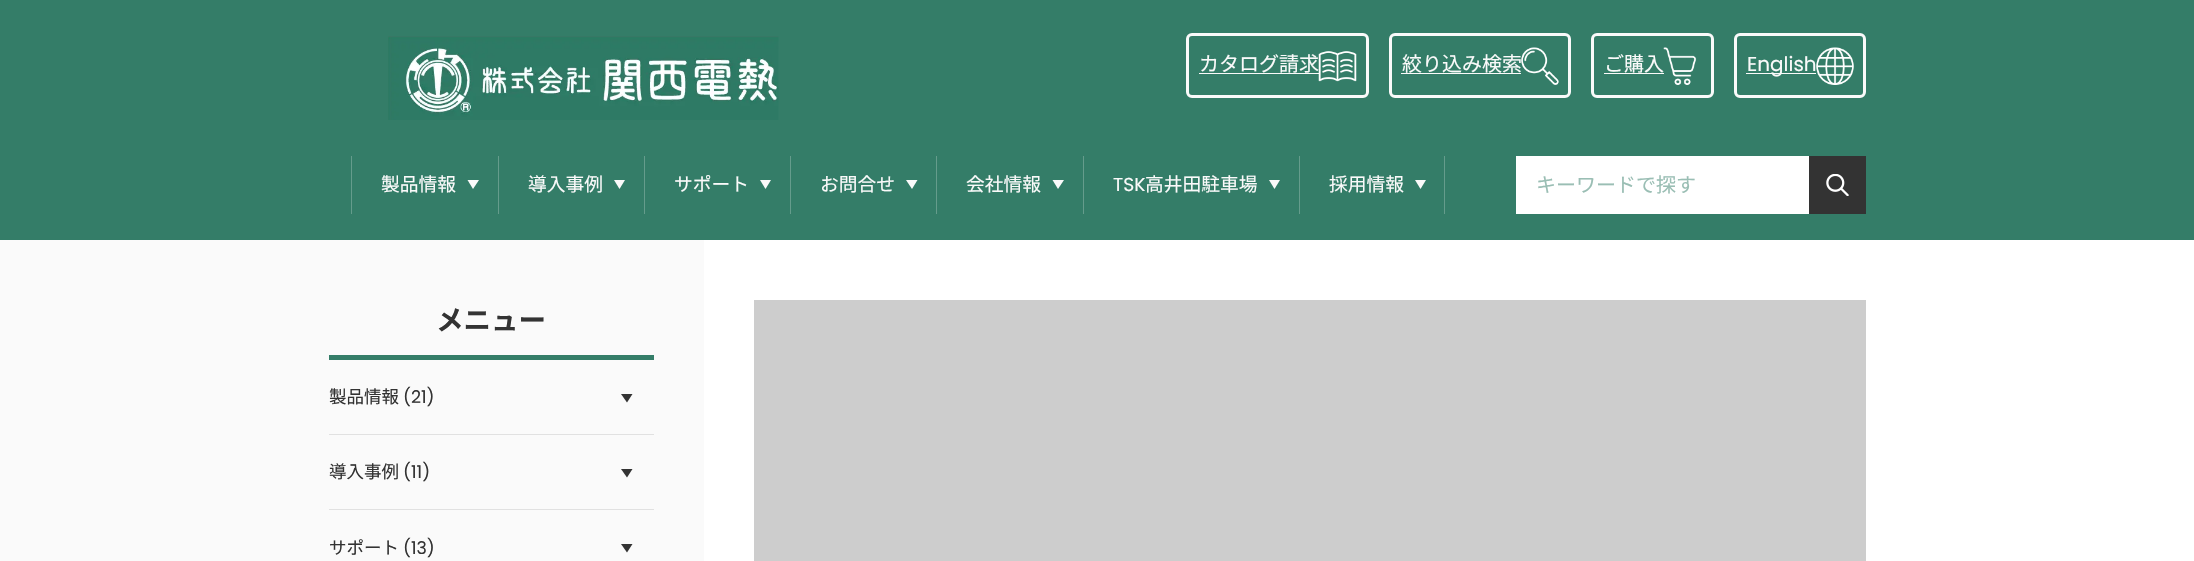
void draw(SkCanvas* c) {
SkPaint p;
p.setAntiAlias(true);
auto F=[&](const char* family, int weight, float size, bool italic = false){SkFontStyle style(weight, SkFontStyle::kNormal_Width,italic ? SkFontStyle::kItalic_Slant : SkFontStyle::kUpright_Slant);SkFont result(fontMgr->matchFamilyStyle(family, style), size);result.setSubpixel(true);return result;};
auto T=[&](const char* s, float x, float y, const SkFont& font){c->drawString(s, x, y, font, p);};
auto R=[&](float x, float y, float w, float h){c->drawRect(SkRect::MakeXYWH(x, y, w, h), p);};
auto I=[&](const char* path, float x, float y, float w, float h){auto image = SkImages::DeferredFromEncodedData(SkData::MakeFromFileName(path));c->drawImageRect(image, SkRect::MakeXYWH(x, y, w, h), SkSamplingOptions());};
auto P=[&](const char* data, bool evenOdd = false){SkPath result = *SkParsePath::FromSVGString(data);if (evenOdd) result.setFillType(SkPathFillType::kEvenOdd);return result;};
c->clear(0xffffffff);
p.setColor(0xff347d68);
R(0,0,2194,240);
I("1.png",388,36,391,84);
p.setStroke(true);
p.setStrokeWidth(3);
p.setColor(0xfffafafa);
c->drawRoundRect(SkRect::MakeXYWH(1187.5,34.5,180,62),4.5,4.5,p);
auto f1 = F("Noto Sans JP",400,20);
p.setStroke(false);
T("カタログ請求",1199,71,f1);
R(1199,73,120,1);
I("2.png",1318,51,39,31);
p.setStroke(true);
c->drawRoundRect(SkRect::MakeXYWH(1390.5,34.5,179,62),4.5,4.5,p);
p.setStroke(false);
T("絞り込み検索",1402,71,f1);
R(1401,73,120,1);
I("3.png",1521,47,38,38);
p.setStroke(true);
c->drawRoundRect(SkRect::MakeXYWH(1592.5,34.5,120,62),4.5,4.5,p);
p.setStroke(false);
T("ご購入",1604,71,f1);
R(1604,73,60,1);
I("4.png",1663,47,34,38);
p.setStroke(true);
c->drawRoundRect(SkRect::MakeXYWH(1735.5,34.5,129,62),4.5,4.5,p);
p.setStroke(false);
R(1746,73,70,1);
auto f2 = F("Poppins",400,20);
T("English",1747,71,f2);
I("5.png",1816,47,38,38);
p.setColor(0xff659c8c);
R(351,156,1,58);
auto f3 = F("Noto Sans JP",400,18.75);
p.setColor(0xfffafafa);
T("製品情報",381,191,f3);
c->drawPath(P("M467.5 180l5.5 9l6-9z"),p);
p.setColor(0xff659c8c);
R(498,156,1,58);
p.setColor(0xfffafafa);
T("導入事例",528,191,f3);
c->drawPath(P("M614 180l5.5 9l5.5-9z"),p);
p.setColor(0xff659c8c);
R(644,156,1,58);
p.setColor(0xfffafafa);
T("サポート",674,191,f3);
c->drawPath(P("M760 180l5.5 9l5.5-9z"),p);
p.setColor(0xff659c8c);
R(790,156,1,58);
p.setColor(0xfffafafa);
T("お問合せ",820,191,f3);
c->drawPath(P("M906 180l6 9l5.5-9z"),p);
p.setColor(0xff659c8c);
R(936,156,1,58);
p.setColor(0xfffafafa);
T("会社情報",966,191,f3);
c->drawPath(P("M1052.5 180l5.5 9l6-9z"),p);
p.setColor(0xff659c8c);
R(1083,156,1,58);
auto f4 = F("Poppins",400,18.75);
p.setColor(0xfffafafa);
T("TSK",1113,191,f4);
T("高井田駐車場",1145,191,f3);
c->drawPath(P("M1269 180l5.5 9l5.5-9z"),p);
p.setColor(0xff659c8c);
R(1444,156,1,58);
R(1299,156,1,58);
p.setColor(0xfffafafa);
T("採用情報",1329,191,f3);
c->drawPath(P("M1415 180l5.5 9l5.5-9z"),p);
p.setColor(0xffffffff);
R(1516,156,293,58);
p.setColor(0xff9abeb4);
T("キーワードで探す",1536,192,f1);
p.setColor(0xff333333);
R(1809,156,57,58);
I("6.png",1826,174,23,22);
p.setColor(0xfffafafa);
R(0,240,704,321);
p.setColor(0xff347d68);
R(329,355,325,5);
auto f5 = F("Noto Sans JP",700,27.5);
p.setColor(0xff333333);
T("メニュー",436,330,f5);
auto f6 = F("Noto Sans JP",400,17.5);
T("製品情報",329,403,f6);
auto f7 = F("Poppins",400,17.5);
T("(21)",403,403,f7);
p.setColor(0xffe1e1e1);
R(329,434,325,1);
p.setColor(0xff333333);
c->drawPath(P("M621 394l6 8.5l5.5-8.5z"),p);
T("導入事例",329,478,f6);
T("(11)",403,478,f7);
p.setColor(0xffe1e1e1);
R(329,509,325,1);
p.setColor(0xff333333);
c->drawPath(P("M621 469l6 8.5l5.5-8.5z"),p);
T("サポート",329,554,f6);
T("(13)",403,554,f7);
c->drawPath(P("M621 544l6 8.5l5.5-8.5z"),p);
p.setColor(0xffcdcdcd);
R(754,300,1112,261);
}
